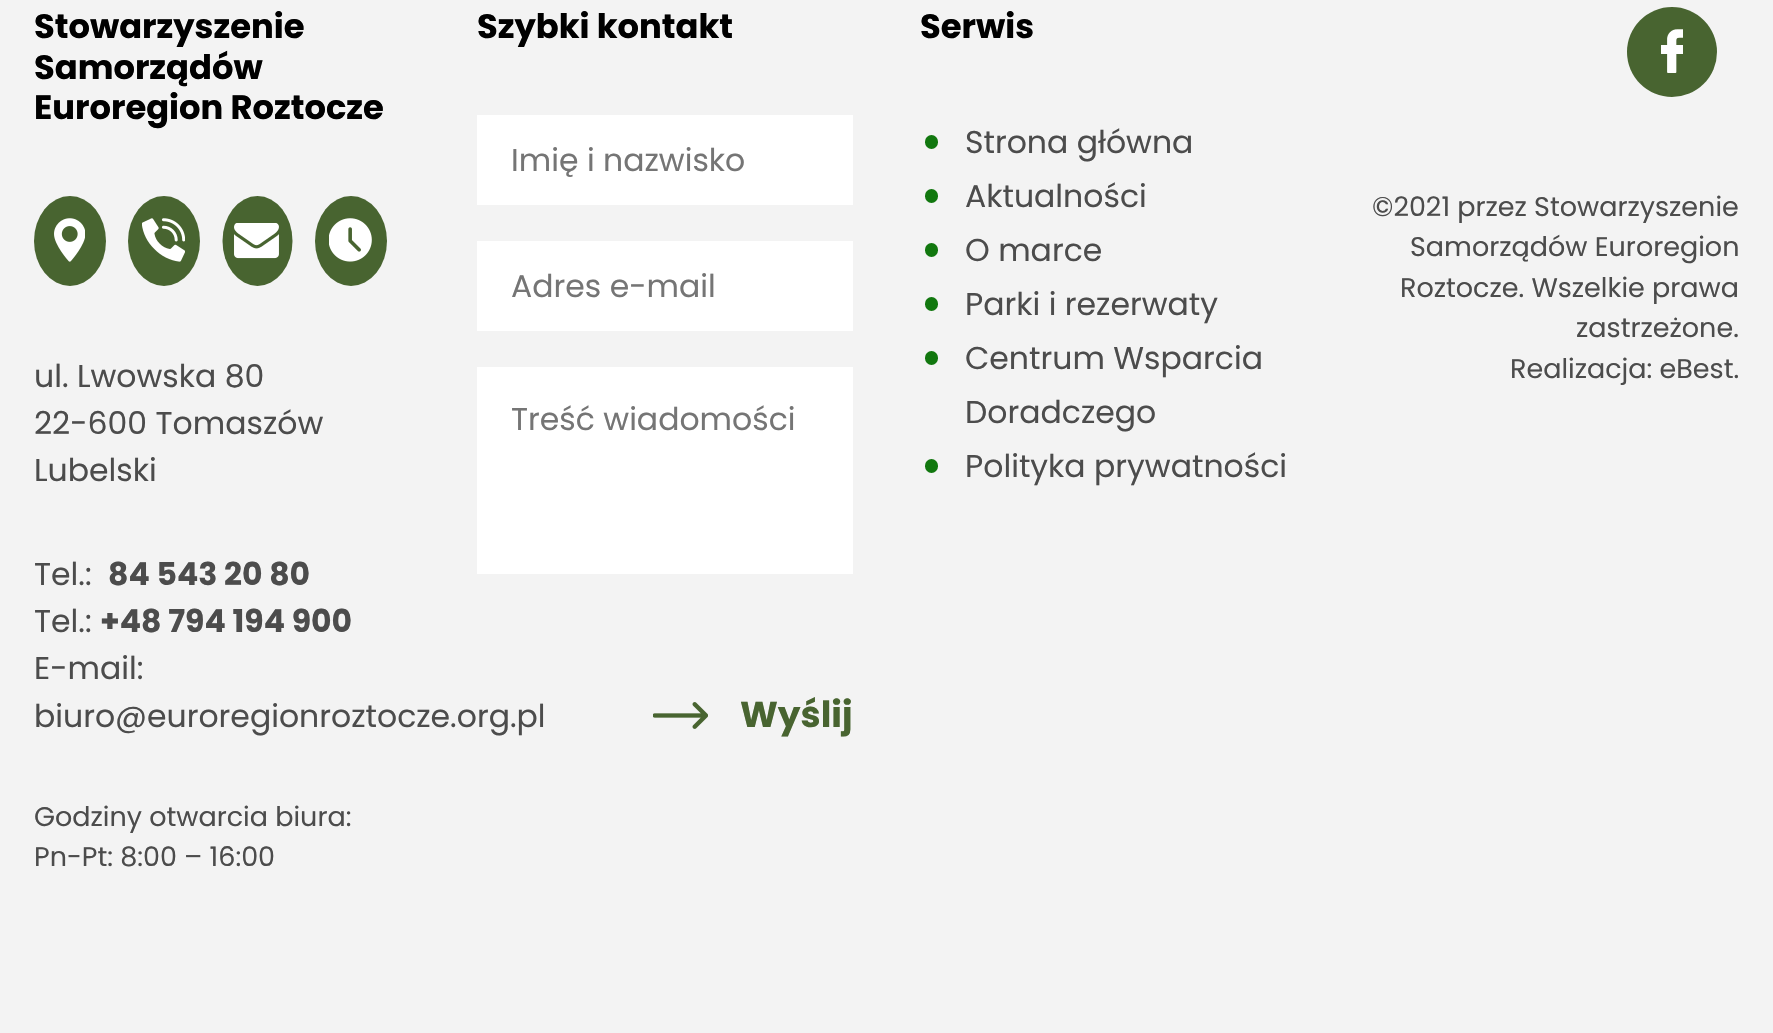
void draw(SkCanvas* c) {
SkPaint p;
p.setAntiAlias(true);
auto F=[&](const char* family, int weight, float size, bool italic = false){SkFontStyle style(weight, SkFontStyle::kNormal_Width,italic ? SkFontStyle::kItalic_Slant : SkFontStyle::kUpright_Slant);SkFont result(fontMgr->matchFamilyStyle(family, style), size);result.setSubpixel(true);return result;};
auto T=[&](const char* s, float x, float y, const SkFont& font){c->drawString(s, x, y, font, p);};
auto R=[&](float x, float y, float w, float h){c->drawRect(SkRect::MakeXYWH(x, y, w, h), p);};
auto Q=[&](float x, float y, float w, float h, float radius){c->drawRoundRect(SkRect::MakeXYWH(x, y, w, h), radius, radius, p);};
auto I=[&](const char* path, float x, float y, float w, float h){auto image = SkImages::DeferredFromEncodedData(SkData::MakeFromFileName(path));c->drawImageRect(image, SkRect::MakeXYWH(x, y, w, h), SkSamplingOptions());};
c->clear(0xfff3f3f3);
auto f1 = F("Poppins",700,33.75);
p.setColor(0xff000000);
T("Stowarzyszenie",34,38,f1);
T("Samorządów",34,79,f1);
T("Euroregion Roztocze",34,119,f1);
p.setColor(0xff486430);
c->drawOval(SkRect::MakeXYWH(34,196,72,90),p);
I("1.png",54,218,31,44);
c->drawOval(SkRect::MakeXYWH(128,196,72,90),p);
I("2.png",142,218,43,44);
c->drawOval(SkRect::MakeXYWH(222.5,196,70,90),p);
I("3.png",234,223,45,36);
c->drawOval(SkRect::MakeXYWH(315,196,72,90),p);
I("4.png",329,218,43,44);
auto f2 = F("Poppins",400,31.5);
p.setColor(0xff4c4c4c);
T("ul. Lwowska 80",34,387,f2);
T("22-600 Tomaszów",34,434,f2);
T("Lubelski",34,481,f2);
T("Tel.:",34,585,f2);
auto f3 = F("Poppins",700,31.5);
T("84 543 20 80",108,585,f3);
T("Tel.:",34,632,f2);
T("+48 794 194 900",100,632,f3);
T("E-mail:",34,679,f2);
T("biuro@euroregionroztocze.org.pl",34,727,f2);
auto f4 = F("Poppins",400,27);
T("Godziny otwarcia biura:",34,826,f4);
T("Pn-Pt: 8:00 – 16:00",34,866,f4);
p.setColor(0xff000000);
T("Szybki kontakt",477,38,f1);
p.setColor(0xffffffff);
R(477,115,376,90);
p.setColor(0xff757575);
T("Imię i nazwisko",511,171,f2);
p.setColor(0xffffffff);
R(477,241,376,90);
p.setColor(0xff757575);
T("Adres e-mail",511,297,f2);
p.setColor(0xffffffff);
R(477,367,376,207);
p.setColor(0xff757575);
T("Treść wiadomości",511,430,f2);
I("5.png",653,702,55,27);
auto f5 = F("Poppins",700,36);
p.setColor(0xff486430);
T("Wyślij",740,727,f5);
p.setColor(0xff000000);
T("Serwis",920,38,f1);
p.setColor(0xff11770e);
Q(925,135,13,14,6.5);
p.setColor(0xff4c4c4c);
T("Strona główna",965,153,f2);
p.setColor(0xff11770e);
Q(925,189,13,14,6.5);
p.setColor(0xff4c4c4c);
T("Aktualności",965,207,f2);
p.setColor(0xff11770e);
Q(925,243,13,14,6.5);
p.setColor(0xff4c4c4c);
T("O marce",965,261,f2);
p.setColor(0xff11770e);
Q(925,297,13,14,6.5);
p.setColor(0xff4c4c4c);
T("Parki i rezerwaty",965,315,f2);
p.setColor(0xff11770e);
Q(925,351,13,14,6.5);
p.setColor(0xff4c4c4c);
T("Centrum Wsparcia",965,369,f2);
T("Doradczego",965,423,f2);
p.setColor(0xff11770e);
Q(925,459,13,14,6.5);
p.setColor(0xff4c4c4c);
T("Polityka prywatności",965,477,f2);
p.setColor(0xff486430);
c->drawCircle(1672,52,45,p);
I("6.png",1661,29,22,44);
p.setColor(0xff4c4c4c);
T("©2021 przez Stowarzyszenie",1372,216,f4);
T("Samorządów Euroregion",1410,256,f4);
T("Roztocze. Wszelkie prawa",1400,297,f4);
T("zastrzeżone.",1576,337,f4);
T("Realizacja: eBest.",1510,378,f4);
}
